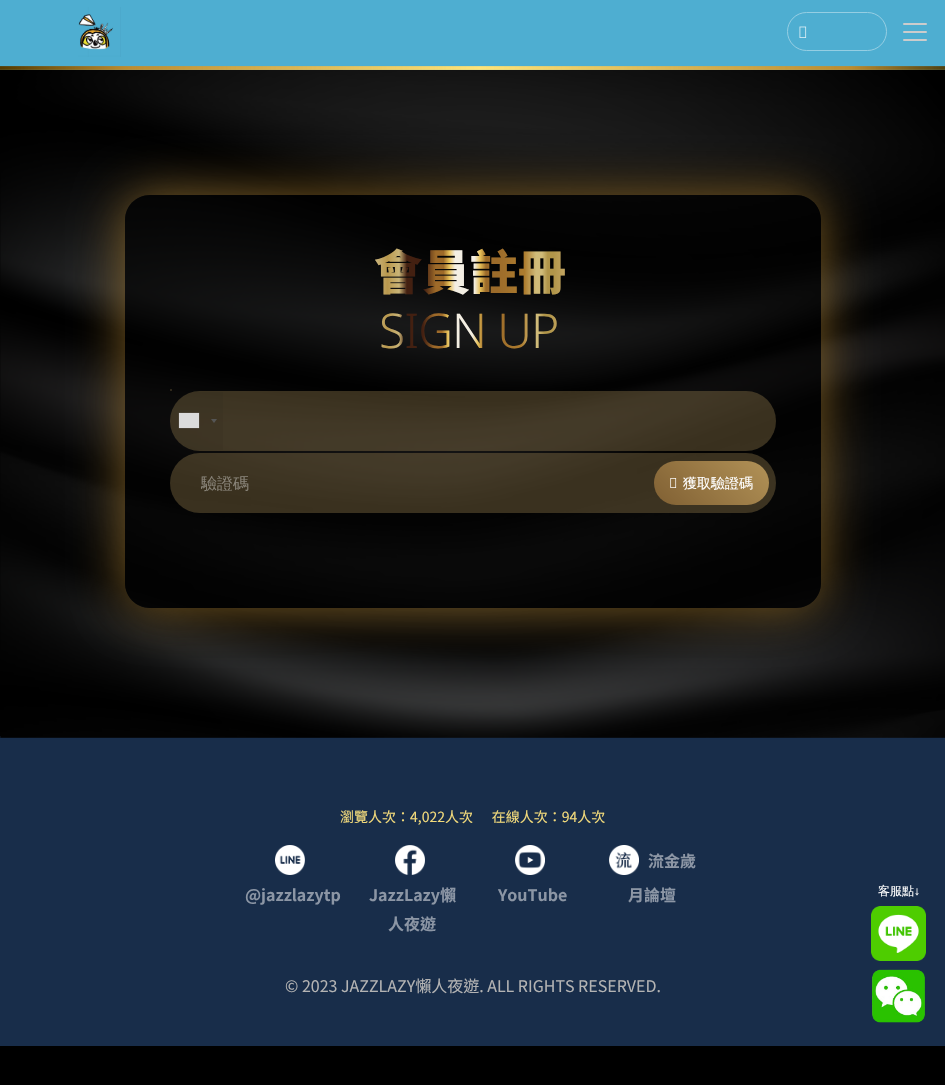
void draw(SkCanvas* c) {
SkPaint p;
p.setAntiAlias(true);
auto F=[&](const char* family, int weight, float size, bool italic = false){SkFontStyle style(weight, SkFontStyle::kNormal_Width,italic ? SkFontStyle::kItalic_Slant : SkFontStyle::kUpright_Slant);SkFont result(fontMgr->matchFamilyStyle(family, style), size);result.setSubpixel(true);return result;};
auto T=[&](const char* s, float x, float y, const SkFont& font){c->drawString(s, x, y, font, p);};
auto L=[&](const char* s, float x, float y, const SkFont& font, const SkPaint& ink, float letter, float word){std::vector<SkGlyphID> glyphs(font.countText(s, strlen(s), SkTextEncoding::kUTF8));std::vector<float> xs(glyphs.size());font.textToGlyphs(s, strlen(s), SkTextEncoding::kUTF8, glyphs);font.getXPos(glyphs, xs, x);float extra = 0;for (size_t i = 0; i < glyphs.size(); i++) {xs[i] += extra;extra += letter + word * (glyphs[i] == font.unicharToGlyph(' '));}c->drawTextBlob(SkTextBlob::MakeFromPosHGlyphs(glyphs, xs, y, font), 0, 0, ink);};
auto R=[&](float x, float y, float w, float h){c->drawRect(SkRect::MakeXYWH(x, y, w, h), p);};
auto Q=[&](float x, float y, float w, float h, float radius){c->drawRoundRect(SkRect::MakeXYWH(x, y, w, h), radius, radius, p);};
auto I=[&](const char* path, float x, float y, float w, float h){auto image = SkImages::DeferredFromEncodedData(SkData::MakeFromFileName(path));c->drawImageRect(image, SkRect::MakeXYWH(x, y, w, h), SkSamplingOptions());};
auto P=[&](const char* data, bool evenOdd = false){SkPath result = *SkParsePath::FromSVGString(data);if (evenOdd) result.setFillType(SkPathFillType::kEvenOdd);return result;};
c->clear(0xff000000);
p.setColor(0xff4eaed1);
R(0,0,945,70);
I("1.png",0,66,945,4);
I("2.png",78,7,43,50);
p.setColor(0xffcccccc);
Q(903,39,24,2,1);
Q(903,31,24,2,1);
Q(903,23,24,2,1);
p.setStroke(true);
p.setStrokeWidth(1);
p.setColor(0xff95cee3);
c->drawRoundRect(SkRect::MakeXYWH(787.5,12.5,99,38),19,19,p);
I("3.png",799,26,8,12);
p.setStroke(false);
p.setColor(0xff182d4a);
R(0,736,945,310);
I("4.png",0,70,945,668);
c->save();
c->clipPath(P("M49 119h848v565h-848zm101 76h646c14 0 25 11 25 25v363c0 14-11 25-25 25h-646c-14 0-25-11-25-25v-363c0-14 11-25 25-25z",true),true);
p.setColor(0xcc997028);
p.setMaskFilter(SkMaskFilter::MakeBlur(kNormal_SkBlurStyle, 25));
c->drawRoundRect(SkRect::MakeXYWH(125,195,696,413),25,25,p);
p.setMaskFilter(nullptr);
c->restore();
p.setColor(0xb3000000);
Q(125,195,696,413,25);
auto f1 = F("Noto Sans TC",900,48);
{
const SkColor colors[] = {0xffcbb782,0xffb9984d,0xffc9b477,0xff432011,0xff432011,0xff9e6a29,0xff9e6a29,0xffe7c058,0xfff4efe3,0xfff4efe3,0xffe7c058,0xff9c6b2a,0xff9c6b2a,0xffad7c2e,0xffd0bb79,0xffd0bb79,0xffb19549,0xffb19549,0xffc7a967};
const float stops[] = {0,.07,.13,.17,.26,.32,.36,.39,.42,.52,.55,.58,.64,.78,.84,.87,.9,.93,1};
const SkPoint ends[] = {{374,269}, {567,269}};
p.setShader(SkGradientShader::MakeLinear(ends, colors, stops, 19, SkTileMode::kClamp));
p.setAlpha(255);
}
T("會員註冊",374,290,f1);
auto f2 = F("Noto Sans",300,48);
{
const SkColor colors[] = {0xffcbb782,0xffb9984d,0xffc9b477,0xff432011,0xff432011,0xff9e6a29,0xff9e6a29,0xffe7c058,0xfff4efe3,0xfff4efe3,0xffe7c058,0xff9c6b2a,0xff9c6b2a,0xffad7c2e,0xffd0bb79,0xffd0bb79,0xffb19549,0xffb19549,0xffc7a967};
const float stops[] = {0,.07,.13,.17,.26,.32,.36,.39,.42,.52,.55,.58,.64,.78,.84,.87,.9,.93,1};
const SkPoint ends[] = {{374,330}, {563,330}};
p.setShader(SkGradientShader::MakeLinear(ends, colors, stops, 19, SkTileMode::kClamp));
p.setAlpha(255);
}
L("SIGN UP",379,348,f2,p,-1,0);
p.setShader(nullptr);
p.setColor(0xff3c3221);
c->drawCircle(171,390,1,p);
p.setColor(0x4db6975d);
Q(170,391,606,60,30);
p.setColor(0x0d000000);
R(171,392,52,58);
p.setColor(0xff888888);
p.setMaskFilter(SkMaskFilter::MakeBlur(kNormal_SkBlurStyle, .5));
c->drawRect(SkRect::MakeXYWH(179,413,20,15),p);
p.setMaskFilter(nullptr);
p.setColor(0xffdbdbdb);
R(179,413,20,15);
p.setColor(0xff555555);
c->drawPath(P("M211 419h6l-3 4z"),p);
p.setColor(0x4db6975d);
Q(170,453,606,60,30);
c->save();
c->clipRect(SkRect::MakeXYWH(201,472,559,23));
auto f3 = F("WenQuanYi Zen Hei",500,16);
p.setColor(0xff888378);
T("驗證碼",201,489,f3);
c->restore();
{
const SkColor colors[] = {0xff806033,0xffb29257};
const float stops[] = {0,1};
const SkPoint ends[] = {{672,523}, {751,443}};
p.setShader(SkGradientShader::MakeLinear(ends, colors, stops, 2, SkTileMode::kClamp));
p.setAlpha(255);
}
Q(654,461,115,44,22);
I("5.png",670,478,7,10);
auto f4 = F("WenQuanYi Zen Hei",500,14);
p.setShader(nullptr);
p.setColor(0xffffffff);
T("獲取驗證碼",683,488,f4);
auto f5 = F("Noto Sans TC",400,14);
p.setColor(0xfff2da7b);
T("瀏覽人次：4,022人次      在線人次：94人次",340,822,f5);
I("6.png",609,845,30,30);
auto f6 = F("Noto Sans TC",700,16);
p.setColor(0xff8c96a5);
T("流金歲",648,867,f6);
T("月論壇",628,901,f6);
I("7.png",275,845,30,30);
T("@jazzlazytp",245,901,f6);
I("8.png",395,845,30,30);
T("JazzLazy懶",369,901,f6);
T("人夜遊",388,930,f6);
I("9.png",515,845,30,30);
T("YouTube",498,901,f6);
auto f7 = F("Noto Sans TC",400,16);
p.setColor(0xffb3b3b3);
T("© 2023 JAZZLAZY懶人夜遊. ALL RIGHTS RESERVED.",285,992,f7);
auto f8 = F("WenQuanYi Zen Hei",500,12);
p.setColor(0xffffffff);
T("客服點",878,895,f8);
auto f9 = F("Liberation Sans",400,12);
T("↓",914,895,f9);
I("10.png",871,906,55,55);
I("11.png",872,969,53,54);
}
